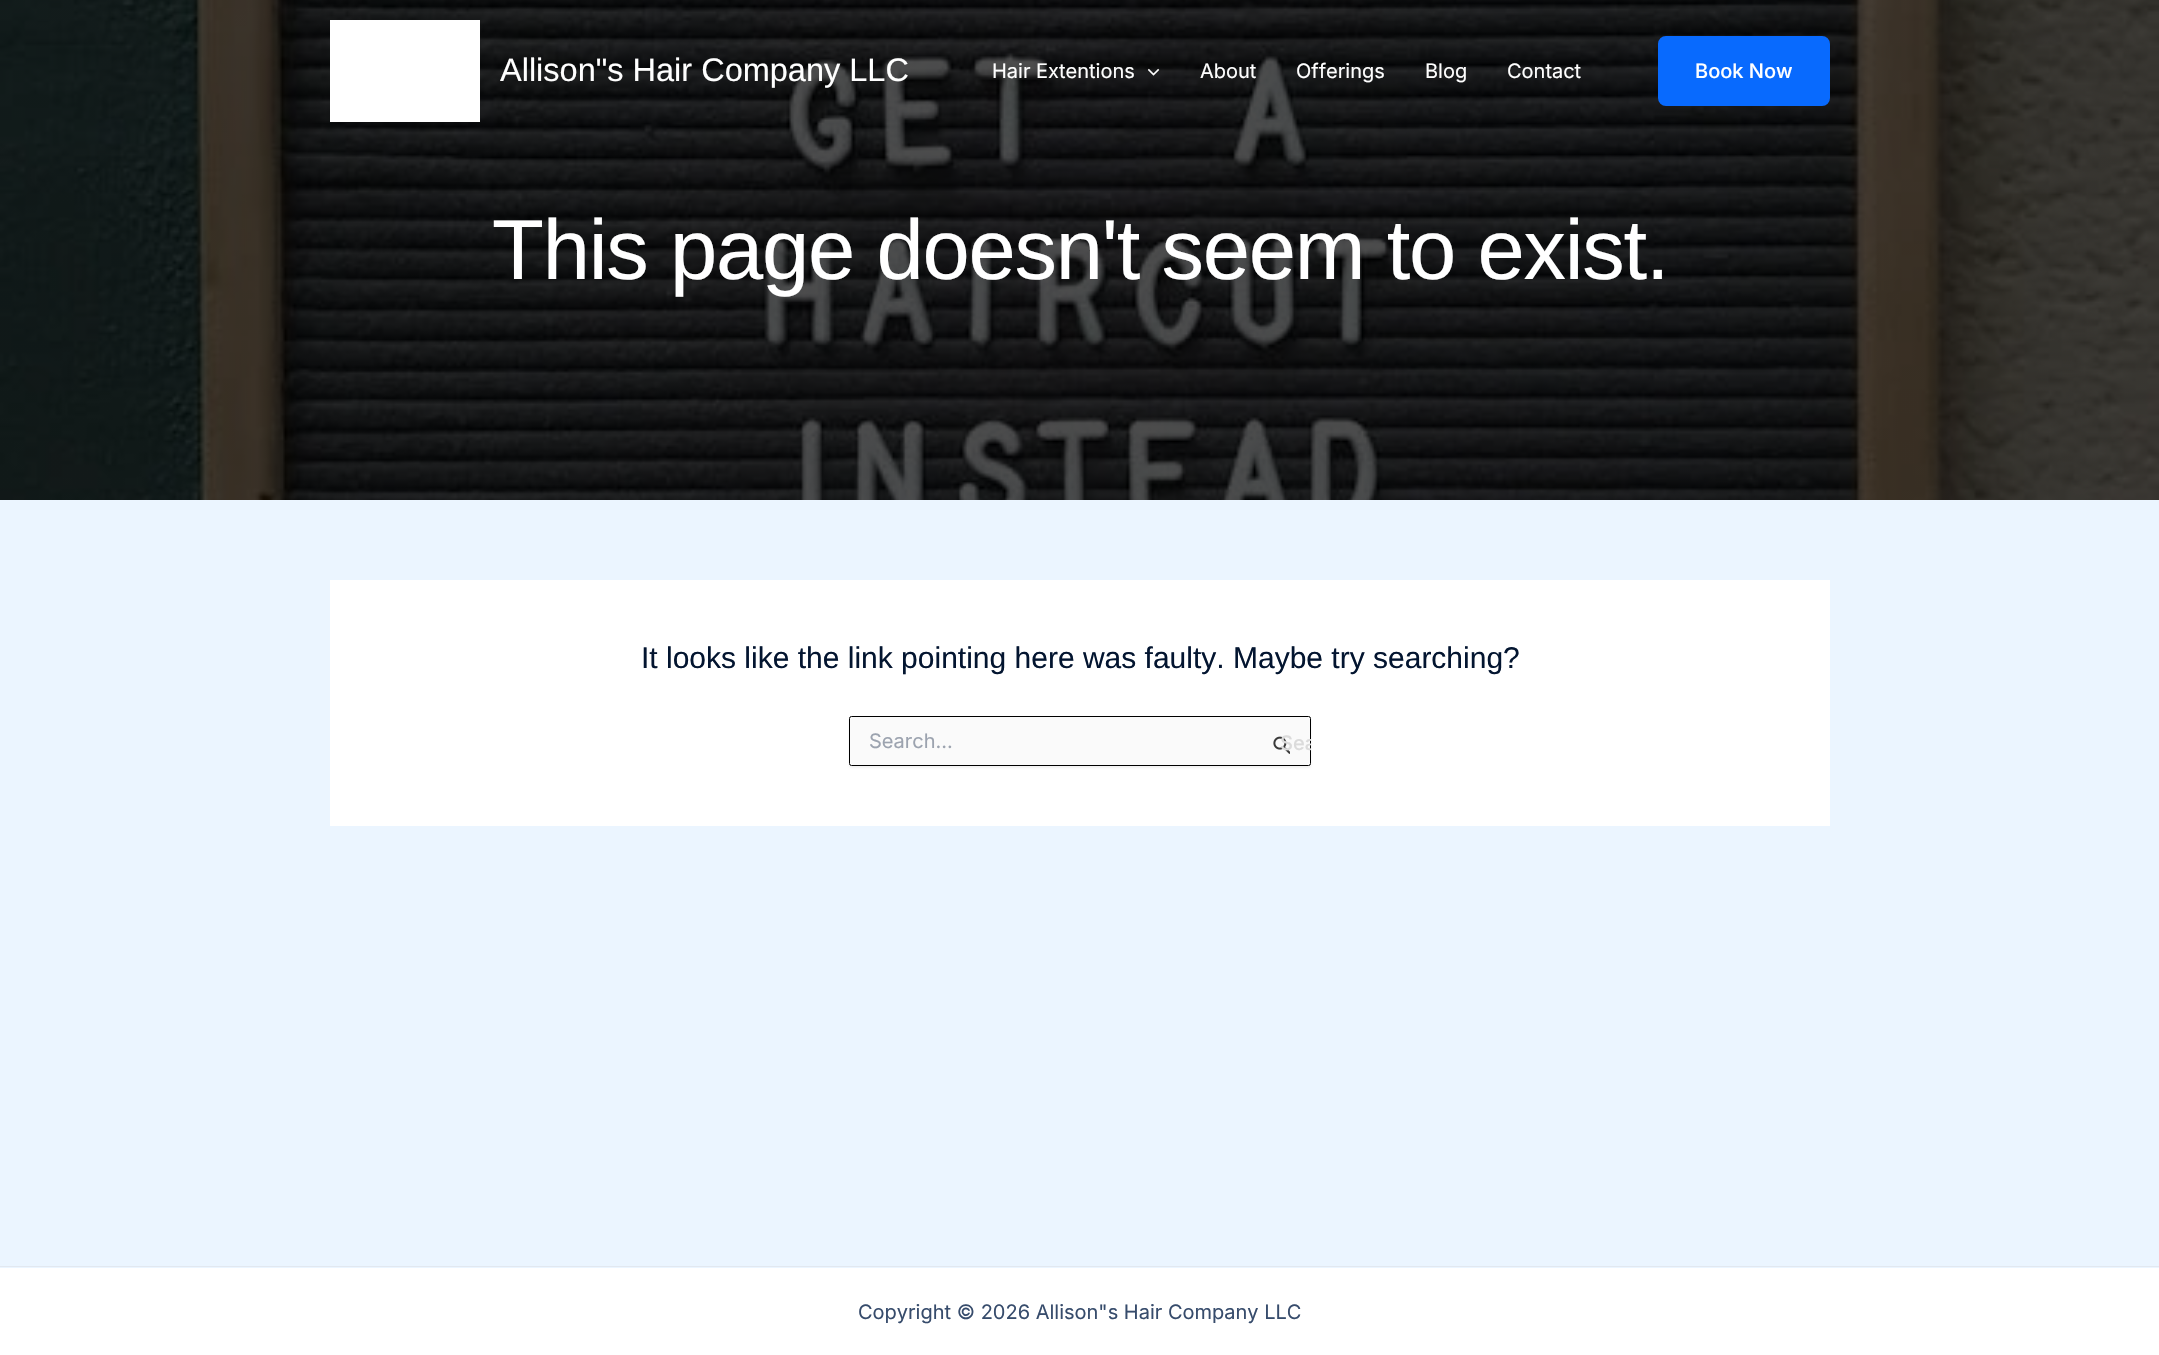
void draw(SkCanvas* c) {
SkPaint p;
p.setAntiAlias(true);
auto F=[&](const char* family, int weight, float size, bool italic = false){SkFontStyle style(weight, SkFontStyle::kNormal_Width,italic ? SkFontStyle::kItalic_Slant : SkFontStyle::kUpright_Slant);SkFont result(fontMgr->matchFamilyStyle(family, style), size);result.setSubpixel(true);return result;};
auto T=[&](const char* s, float x, float y, const SkFont& font){c->drawString(s, x, y, font, p);};
auto L=[&](const char* s, float x, float y, const SkFont& font, const SkPaint& ink, float letter, float word){std::vector<SkGlyphID> glyphs(font.countText(s, strlen(s), SkTextEncoding::kUTF8));std::vector<float> xs(glyphs.size());font.textToGlyphs(s, strlen(s), SkTextEncoding::kUTF8, glyphs);font.getXPos(glyphs, xs, x);float extra = 0;for (size_t i = 0; i < glyphs.size(); i++) {xs[i] += extra;extra += letter + word * (glyphs[i] == font.unicharToGlyph(' '));}c->drawTextBlob(SkTextBlob::MakeFromPosHGlyphs(glyphs, xs, y, font), 0, 0, ink);};
auto R=[&](float x, float y, float w, float h){c->drawRect(SkRect::MakeXYWH(x, y, w, h), p);};
auto I=[&](const char* path, float x, float y, float w, float h){auto image = SkImages::DeferredFromEncodedData(SkData::MakeFromFileName(path));c->drawImageRect(image, SkRect::MakeXYWH(x, y, w, h), SkSamplingOptions());};
auto P=[&](const char* data, bool evenOdd = false){SkPath result = *SkParsePath::FromSVGString(data);if (evenOdd) result.setFillType(SkPathFillType::kEvenOdd);return result;};
c->clear(0xffebf5ff);
I("2.png",0,0,2159,500);
p.setColor(0xffffffff);
R(330,20,150,102);
auto f1 = F("Liberation Sans",400,32.5);
T("Allison\"s Hair Company LLC",500,81,f1);
auto f2 = F("Inter",400,20);
T("Hair Extentions",992,78,f2);
I("1.png",1148,68,12,8);
T("About",1200,78,f2);
T("Offerings",1296,78,f2);
T("Blog",1425,78,f2);
T("Contact",1507,78,f2);
p.setColor(0xff086afe);
c->drawRoundRect(SkRect::MakeXYWH(1659.5,37.5,169,67),6.5,6.5,p);
p.setStroke(true);
p.setStrokeWidth(3);
c->drawRoundRect(SkRect::MakeXYWH(1659.5,37.5,169,67),6.5,6.5,p);
auto f3 = F("Inter",500,20);
p.setStroke(false);
p.setColor(0xffffffff);
T("Book Now",1695,78,f3);
auto f4 = F("Liberation Sans",400,85);
L("This page doesn't seem to exist.",492,279,f4,p,-1.25,0);
R(330,580,1500,246);
auto f5 = F("Liberation Sans",400,30);
p.setColor(0xff031530);
T("It looks like the link pointing here was faulty. Maybe try searching?",641,668,f5);
p.setColor(0x0d000000);
p.setMaskFilter(SkMaskFilter::MakeBlur(kNormal_SkBlurStyle, 1));
c->drawRoundRect(SkRect::MakeXYWH(849,718,462,50),2.5,2.5,p);
p.setMaskFilter(nullptr);
p.setColor(0xfffafafa);
c->drawRoundRect(SkRect::MakeXYWH(849.5,716.5,461,49),2,2,p);
p.setStroke(true);
p.setStrokeWidth(1);
p.setColor(0xff000000);
c->drawRoundRect(SkRect::MakeXYWH(849.5,716.5,461,49),2,2,p);
p.setStroke(false);
p.setColor(0xff9ca3af);
T("Search...",869,748,f2);
I("3.png",1273,736,17,18);
c->save();
c->clipPath(P("M1257.5 716h51c1.5 0 2.5 1 2.5 2.5v48c0 1.5-1 2.5-2.5 2.5h-51c-1.5 0-2.5-1-2.5-2.5v-48c0-1.5 1-2.5 2.5-2.5z"),true);
p.setColor(0xffdbdbdb);
T("Sea",1280,750,f3);
c->restore();
p.setColor(0xffffffff);
R(0,1268,2159,87);
p.setColor(0xffe2e8f0);
R(0,1266,2159,1);
p.setColor(0xff374c6c);
T("Copyright © 2026 Allison\"s Hair Company LLC",858,1319,f2);
}
